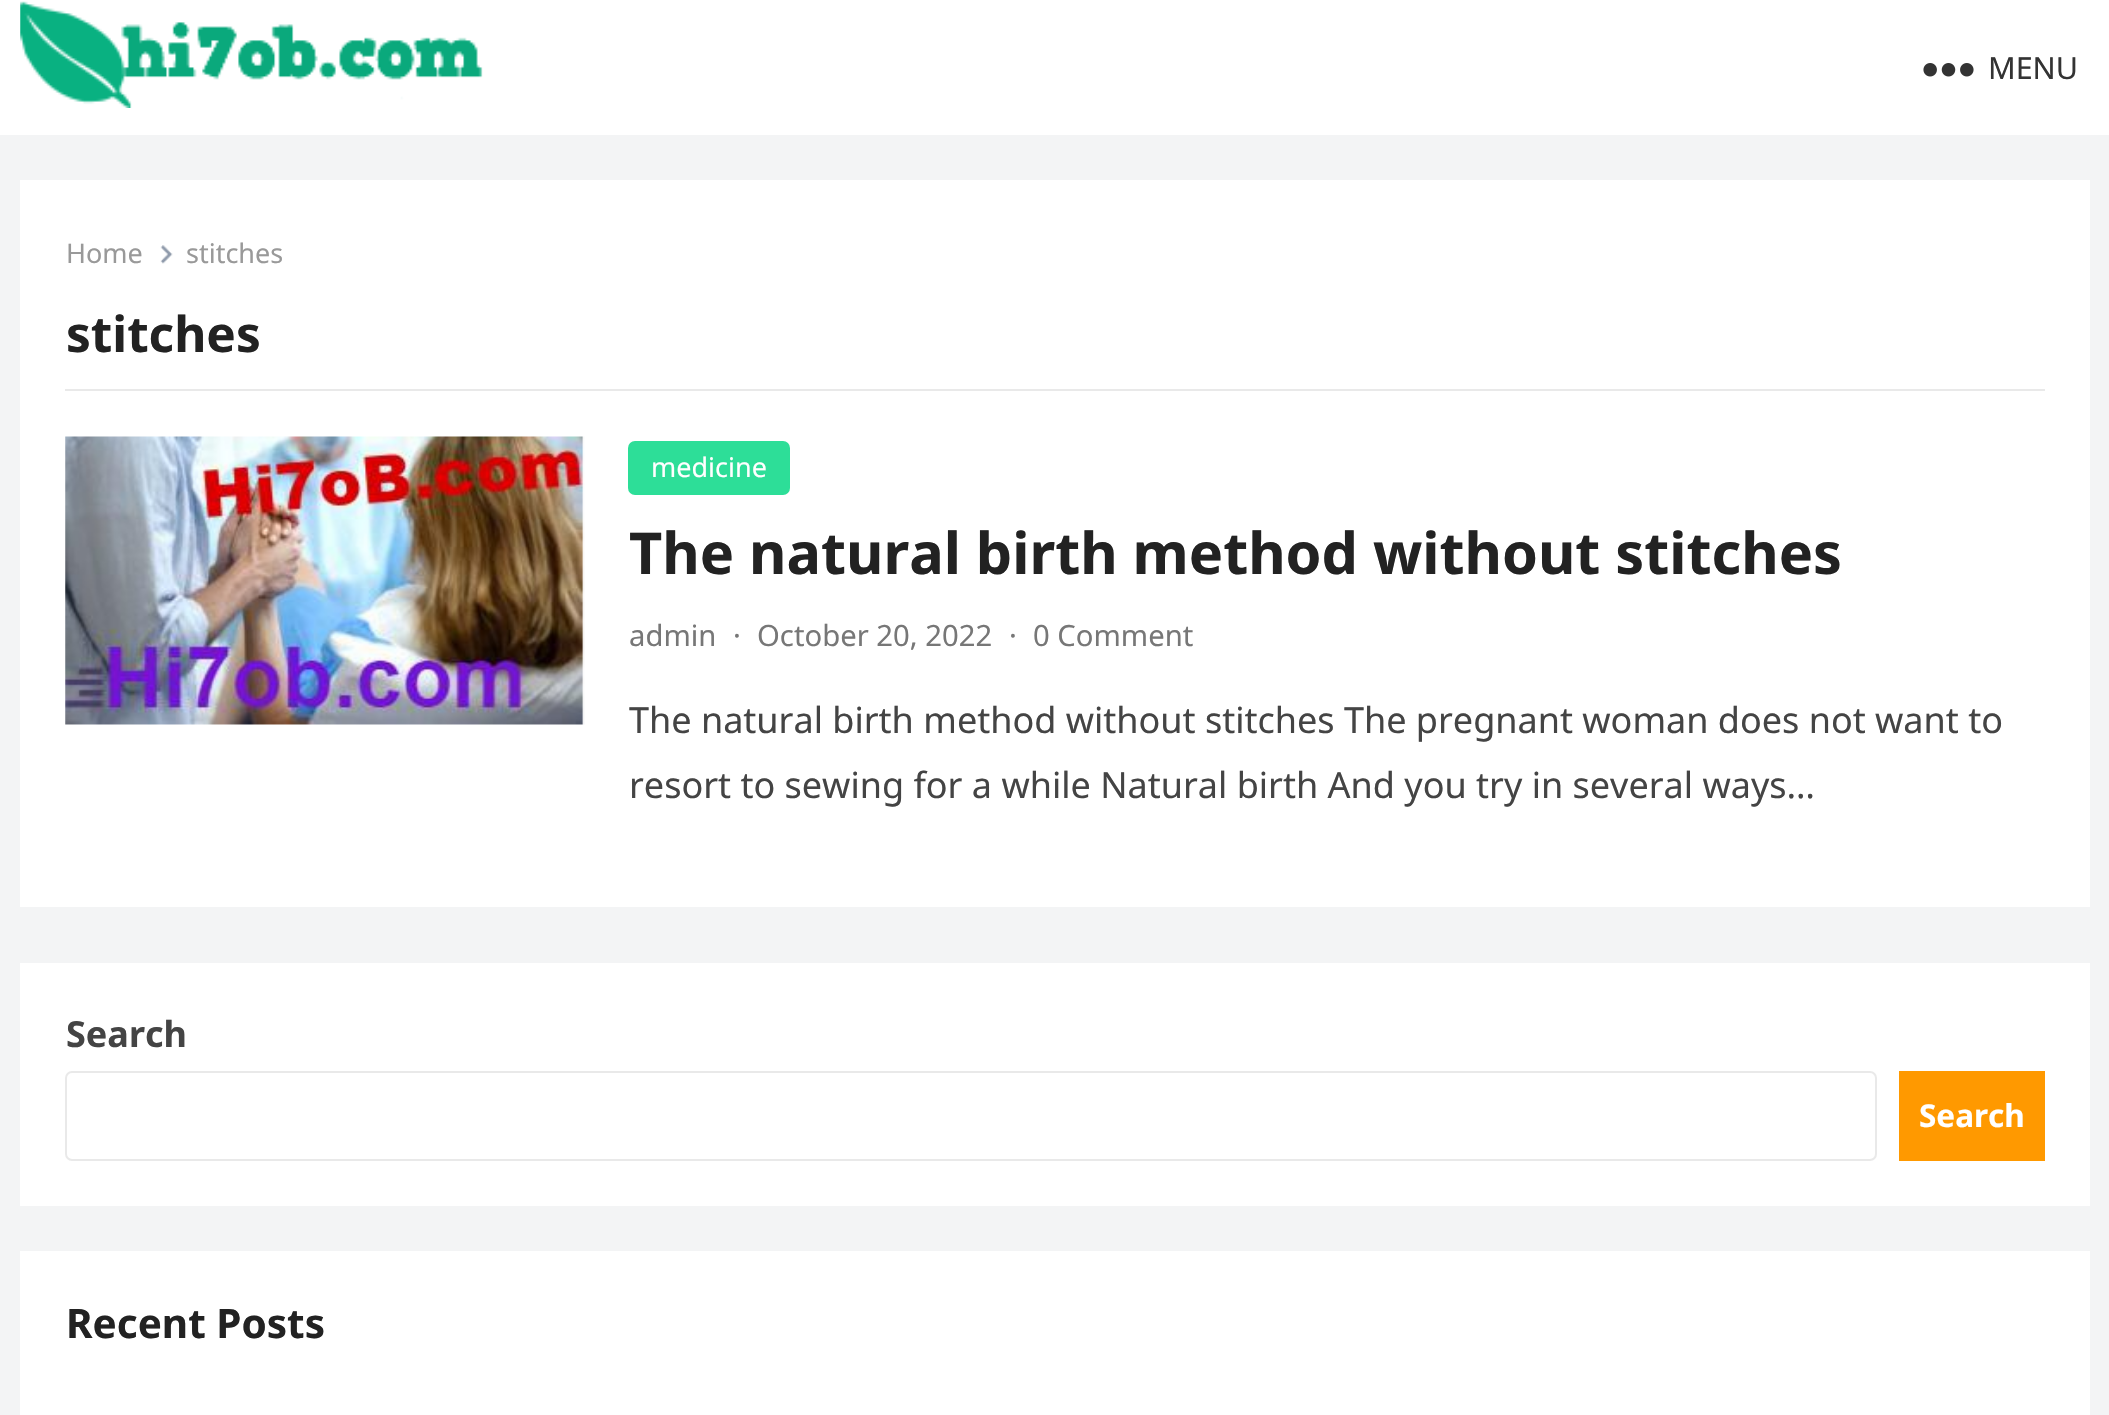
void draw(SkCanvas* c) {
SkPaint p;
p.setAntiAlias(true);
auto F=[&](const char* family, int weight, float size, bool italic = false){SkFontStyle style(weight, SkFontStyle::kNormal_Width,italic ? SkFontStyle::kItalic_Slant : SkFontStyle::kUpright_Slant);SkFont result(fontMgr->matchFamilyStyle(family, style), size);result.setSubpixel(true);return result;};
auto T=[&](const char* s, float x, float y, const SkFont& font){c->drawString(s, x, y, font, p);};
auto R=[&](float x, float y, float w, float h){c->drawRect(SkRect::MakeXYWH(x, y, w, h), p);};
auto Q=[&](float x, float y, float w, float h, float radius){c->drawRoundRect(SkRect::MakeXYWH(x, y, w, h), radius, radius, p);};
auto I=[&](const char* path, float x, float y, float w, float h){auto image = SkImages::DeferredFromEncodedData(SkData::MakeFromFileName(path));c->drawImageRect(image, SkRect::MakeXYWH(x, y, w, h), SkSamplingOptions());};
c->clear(0xfff3f4f5);
p.setColor(0xffffffff);
R(0,0,2109,135);
I("1.png",20,1,463,107);
I("2.png",1923,63,51,14);
auto f1 = F("Noto Sans",400,30.5);
p.setColor(0xff333333);
T("MENU",1988,79,f1);
p.setColor(0xffffffff);
R(20,180,2070,727);
p.setColor(0xffe9e9e9);
R(65,389,1980,2);
auto f2 = F("Noto Sans",400,27);
p.setColor(0xff999999);
T("Home",66,263,f2);
I("3.png",160,245,13,19);
T("stitches",186,263,f2);
auto f3 = F("Noto Sans",700,49.5);
p.setColor(0xff222222);
T("stitches",66,352,f3);
I("4.png",65,436,520,289);
p.setColor(0xff2dde98);
Q(628,441,162,54,7);
p.setColor(0xffffffff);
T("medicine",651,477,f2);
auto f4 = F("Noto Sans",700,57.6);
p.setColor(0xff222222);
T("The natural birth method without stitches",629,574,f4);
auto f5 = F("Noto Sans",400,29.25);
p.setColor(0xff777777);
T("admin",629,646,f5);
T("·",733,646,f5);
T("October 20, 2022",757,646,f5);
T("·",1009,646,f5);
T("0 Comment",1033,646,f5);
auto f6 = F("Noto Sans",400,36);
p.setColor(0xff444444);
T("The natural birth method without stitches The pregnant woman does not want to",629,733,f6);
T("resort to sewing for a while Natural birth And you try in several ways…",629,798,f6);
p.setColor(0xffffffff);
R(20,963,2070,243);
auto f7 = F("Noto Sans",700,36);
p.setColor(0xff444444);
T("Search",66,1047,f7);
p.setStroke(true);
p.setStrokeWidth(2);
p.setColor(0xffe9e9e9);
c->drawRoundRect(SkRect::MakeXYWH(66,1072,1810,88),6,6,p);
p.setStroke(false);
p.setColor(0xffff9900);
R(1899,1071,146,90);
auto f8 = F("Noto Sans",700,31.5);
p.setColor(0xffffffff);
T("Search",1919,1127,f8);
R(20,1251,2070,164);
auto f9 = F("Noto Sans",700,40.5);
p.setColor(0xff222222);
T("Recent Posts",66,1338,f9);
}
